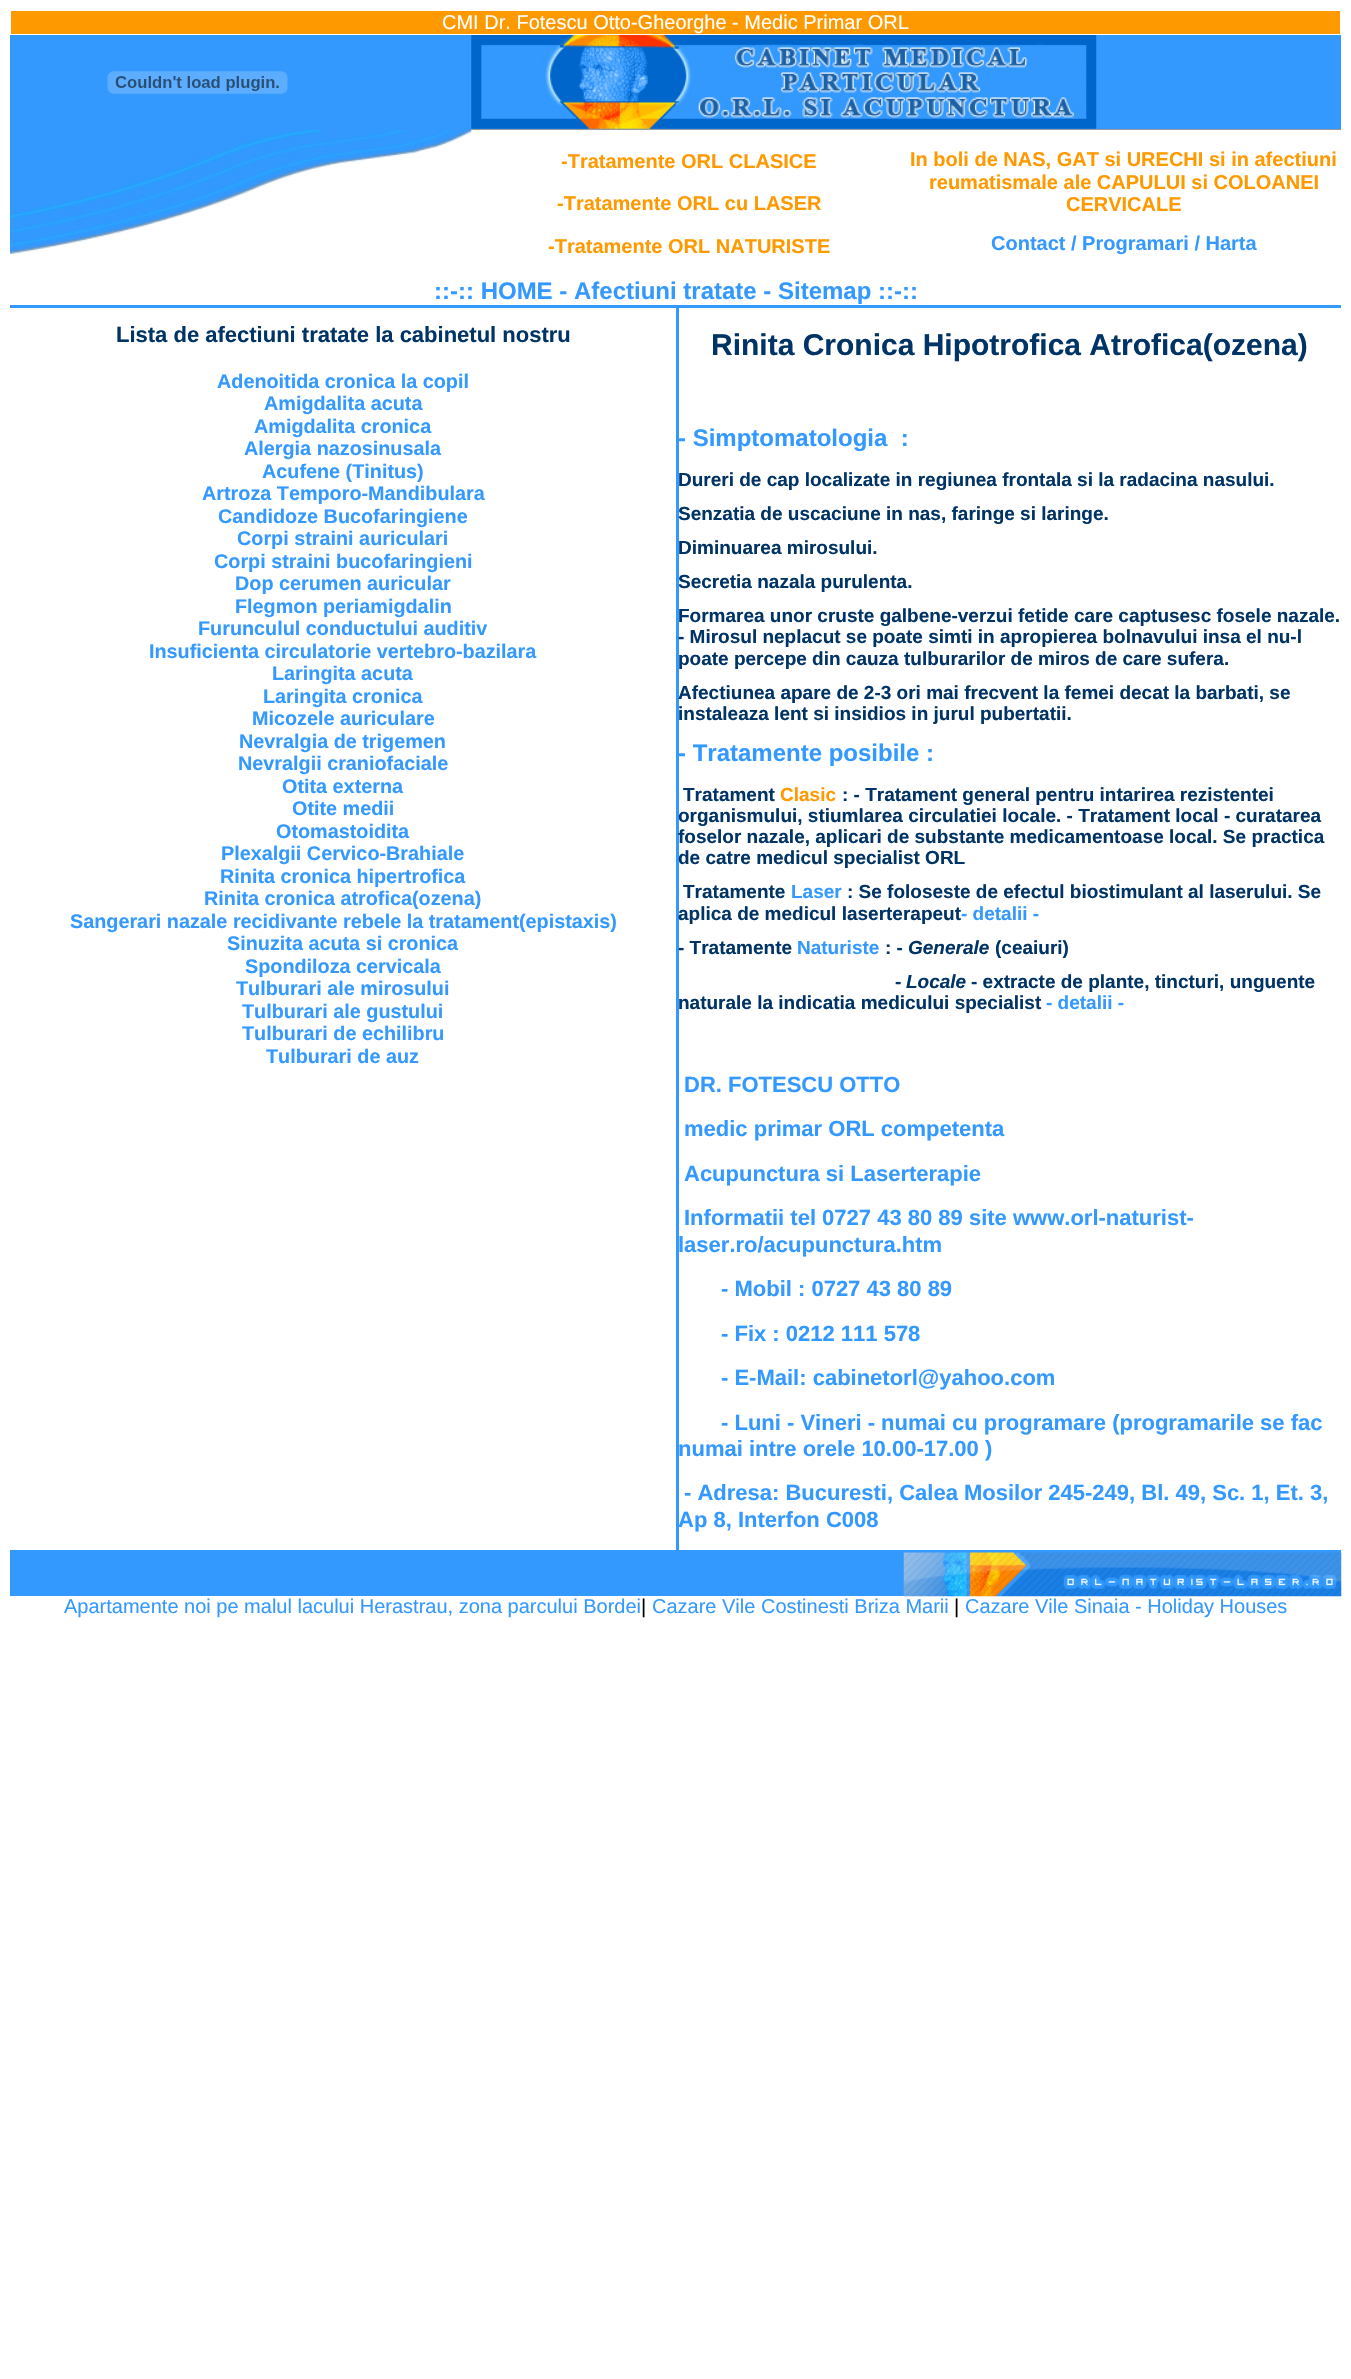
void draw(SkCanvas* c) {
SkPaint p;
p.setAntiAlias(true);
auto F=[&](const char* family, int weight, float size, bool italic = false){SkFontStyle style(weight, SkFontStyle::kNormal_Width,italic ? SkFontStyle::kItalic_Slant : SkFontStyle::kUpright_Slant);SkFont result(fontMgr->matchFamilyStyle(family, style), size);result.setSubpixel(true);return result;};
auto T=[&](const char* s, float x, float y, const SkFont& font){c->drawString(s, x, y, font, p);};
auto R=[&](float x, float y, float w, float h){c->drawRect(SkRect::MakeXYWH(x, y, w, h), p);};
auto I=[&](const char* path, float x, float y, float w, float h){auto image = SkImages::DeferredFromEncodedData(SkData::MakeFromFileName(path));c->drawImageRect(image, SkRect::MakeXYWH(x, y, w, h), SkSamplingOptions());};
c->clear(0xffffffff);
p.setColor(0xffff9900);
R(11,11,1329,23);
auto f1 = F("Liberation Sans",400,20);
p.setColor(0xffffffff);
T("CMI Dr. Fotescu Otto-Gheorghe - Medic Primar ORL",442,29,f1);
p.setColor(0xff3399ff);
R(10,35,1331,95);
I("1.png",107,71,181,23);
p.setColor(0xff999999);
R(471,129,870,1);
I("2.png",471,35,626,94);
I("3.png",10,130,462,124);
auto f2 = F("Liberation Sans",700,20);
p.setColor(0xffff9900);
T("-Tratamente ORL CLASICE",561,168,f2);
T("-Tratamente ORL cu LASER",557,210,f2);
T("-Tratamente ORL NATURISTE",548,253,f2);
T("In boli de NAS, GAT si URECHI si in afectiuni",910,166,f2);
T("reumatismale ale CAPULUI si COLOANEI",929,189,f2);
T("CERVICALE",1066,211,f2);
p.setColor(0xff3399ff);
T("Contact / Programari / Harta",991,250,f2);
R(10,305,1331,3);
auto f3 = F("Liberation Sans",700,24);
T("::-:: HOME - Afectiuni tratate - Sitemap ::-::",434,299,f3);
R(10,1550,1331,3);
auto f4 = F("Liberation Sans",700,22);
p.setColor(0xff003366);
T("Lista de afectiuni tratate la cabinetul nostru",116,342,f4);
auto f5 = F("Liberation Sans",700,19.8);
p.setColor(0xff3399ff);
T("Adenoitida cronica la copil",217,388,f5);
T("Amigdalita acuta",264,410,f5);
T("Amigdalita cronica",254,433,f5);
T("Alergia nazosinusala",244,455,f5);
T("Acufene (Tinitus)",262,478,f5);
T("Artroza Temporo-Mandibulara",202,500,f5);
T("Candidoze Bucofaringiene",218,523,f5);
T("Corpi straini auriculari",237,545,f5);
T("Corpi straini bucofaringieni",214,568,f5);
T("Dop cerumen auricular",235,590,f5);
T("Flegmon periamigdalin",235,613,f5);
T("Furunculul conductului auditiv",198,635,f5);
T("Insuficienta circulatorie vertebro-bazilara",149,658,f5);
T("Laringita acuta",272,680,f5);
T("Laringita cronica",263,703,f5);
T("Micozele auriculare",252,725,f5);
T("Nevralgia de trigemen",239,748,f5);
T("Nevralgii craniofaciale",238,770,f5);
T("Otita externa",282,793,f5);
T("Otite medii",292,815,f5);
T("Otomastoidita",276,838,f5);
T("Plexalgii Cervico-Brahiale",221,860,f5);
T("Rinita cronica hipertrofica",220,883,f5);
T("Rinita cronica atrofica(ozena)",204,905,f5);
T("Sangerari nazale recidivante rebele la tratament(epistaxis)",70,928,f5);
T("Sinuzita acuta si cronica",227,950,f5);
T("Spondiloza cervicala",245,973,f5);
T("Tulburari ale mirosului",236,995,f5);
T("Tulburari ale gustului",242,1018,f5);
T("Tulburari de echilibru",242,1040,f5);
T("Tulburari de auz",266,1063,f5);
R(676,308,3,1245);
auto f6 = F("Liberation Sans",700,30);
p.setColor(0xff003366);
T("Rinita Cronica Hipotrofica Atrofica(ozena)",711,355,f6);
p.setColor(0xff3399ff);
T("- Simptomatologia  :",678,446,f3);
auto f7 = F("Liberation Sans",700,19);
p.setColor(0xff003366);
T("Dureri de cap localizate in regiunea frontala si la radacina nasului.",678,486,f7);
T("Senzatia de uscaciune in nas, faringe si laringe.",678,520,f7);
T("Diminuarea mirosului.",678,554,f7);
T("Secretia nazala purulenta.",678,588,f7);
T("Formarea unor cruste galbene-verzui fetide care captusesc fosele nazale.",678,622,f7);
T("- Mirosul neplacut se poate simti in apropierea bolnavului insa el nu-l",678,643,f7);
T("poate percepe din cauza tulburarilor de miros de care sufera.",678,665,f7);
T("Afectiunea apare de 2-3 ori mai frecvent la femei decat la barbati, se",678,699,f7);
T("instaleaza lent si insidios in jurul pubertatii.",678,720,f7);
p.setColor(0xff3399ff);
T("- Tratamente posibile :",678,761,f3);
p.setColor(0xff003366);
T("Tratament",683,801,f7);
p.setColor(0xffff9900);
T("Clasic",780,801,f7);
p.setColor(0xff003366);
T(": - Tratament general pentru intarirea rezistentei",842,801,f7);
T("organismului, stiumlarea circulatiei locale. - Tratament local - curatarea",678,822,f7);
T("foselor nazale, aplicari de substante medicamentoase local. Se practica",678,843,f7);
T("de catre medicul specialist ORL",678,864,f7);
T("Tratamente",683,898,f7);
p.setColor(0xff3399ff);
T("Laser",791,898,f7);
p.setColor(0xff003366);
T(": Se foloseste de efectul biostimulant al laserului. Se",847,898,f7);
T("aplica de medicul laserterapeut",678,920,f7);
p.setColor(0xff3399ff);
T("- detalii -",961,920,f7);
p.setColor(0xff003366);
T("- Tratamente",678,954,f7);
p.setColor(0xff3399ff);
T("Naturiste",797,954,f7);
p.setColor(0xff003366);
T(": -",885,954,f7);
auto f8 = F("Liberation Sans",700,19,true);
T("Generale",908,954,f8);
T("(ceaiuri)",995,954,f7);
T("-",895,988,f7);
T("Locale",906,988,f8);
T("- extracte de plante, tincturi, unguente",971,988,f7);
T("naturale la indicatia medicului specialist",678,1009,f7);
p.setColor(0xff3399ff);
T("- detalii -",1046,1009,f7);
T("DR. FOTESCU OTTO",684,1092,f4);
T("medic primar ORL competenta",684,1136,f4);
T("Acupunctura si Laserterapie",684,1181,f4);
T("Informatii tel 0727 43 80 89 site www.orl-naturist-",684,1225,f4);
T("laser.ro/acupunctura.htm",678,1252,f4);
T("- Mobil : 0727 43 80 89",721,1296,f4);
T("- Fix : 0212 111 578",721,1341,f4);
T("- E-Mail: cabinetorl@yahoo.com",721,1385,f4);
T("- Luni - Vineri - numai cu programare (programarile se fac",721,1430,f4);
T("numai intre orele 10.00-17.00 )",678,1456,f4);
T("- Adresa: Bucuresti, Calea Mosilor 245-249, Bl. 49, Sc. 1, Et. 3,",684,1500,f4);
T("Ap 8, Interfon C008",678,1527,f4);
R(10,1553,894,43);
I("4.png",903,1552,439,45);
T("Apartamente noi pe malul lacului Herastrau, zona parcului Bordei",64,1613,f1);
p.setColor(0xff000000);
T("|",641,1613,f1);
p.setColor(0xff3399ff);
T("Cazare Vile Costinesti Briza Marii",652,1613,f1);
p.setColor(0xff000000);
T("|",954,1613,f1);
p.setColor(0xff3399ff);
T("Cazare Vile Sinaia - Holiday Houses",965,1613,f1);
}
